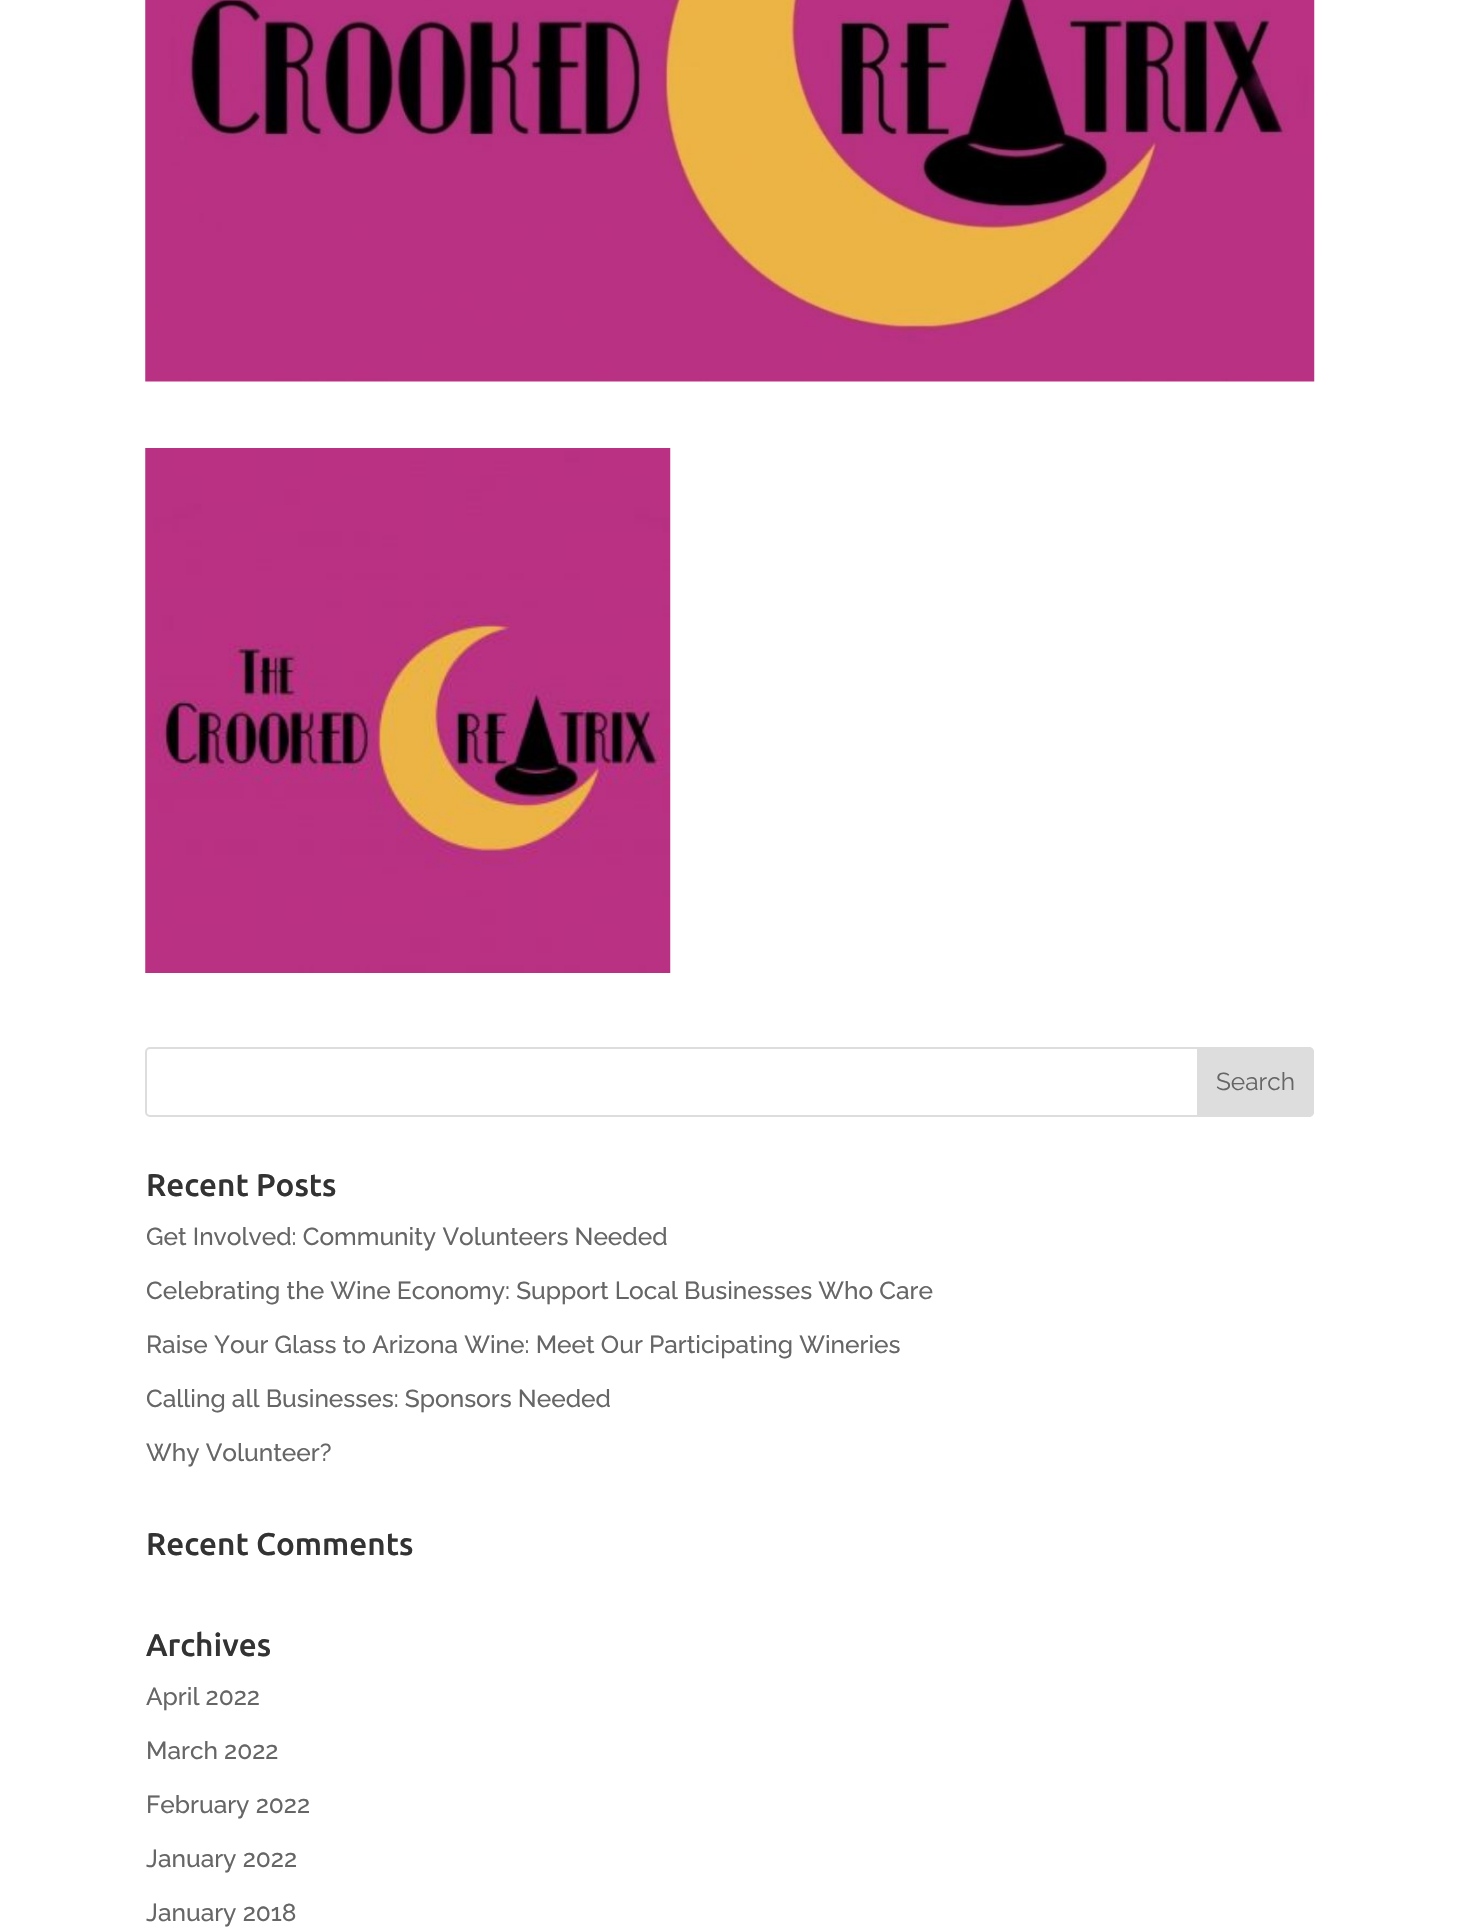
void draw(SkCanvas* c) {
SkPaint p;
p.setAntiAlias(true);
auto F=[&](const char* family, int weight, float size, bool italic = false){SkFontStyle style(weight, SkFontStyle::kNormal_Width,italic ? SkFontStyle::kItalic_Slant : SkFontStyle::kUpright_Slant);SkFont result(fontMgr->matchFamilyStyle(family, style), size);result.setSubpixel(true);return result;};
auto T=[&](const char* s, float x, float y, const SkFont& font){c->drawString(s, x, y, font, p);};
auto I=[&](const char* path, float x, float y, float w, float h){auto image = SkImages::DeferredFromEncodedData(SkData::MakeFromFileName(path));c->drawImageRect(image, SkRect::MakeXYWH(x, y, w, h), SkSamplingOptions());};
auto P=[&](const char* data, bool evenOdd = false){SkPath result = *SkParsePath::FromSVGString(data);if (evenOdd) result.setFillType(SkPathFillType::kEvenOdd);return result;};
c->clear(0xffffffff);
I("1.png",145,0,1170,382);
I("2.png",145,448,526,525);
p.setStroke(true);
p.setStrokeWidth(2);
p.setColor(0xffdddddd);
c->drawRoundRect(SkRect::MakeXYWH(146,1048,1167,68),4,4,p);
p.setStroke(false);
c->drawPath(P("M1198 1048h111c2 0 4 2 4 4v60c0 2-2 4-4 4h-111z"),p);
p.setStroke(true);
c->drawPath(P("M1198 1048h111c2 0 4 2 4 4v60c0 2-2 4-4 4h-111z"),p);
auto f1 = F("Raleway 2",100,24.5);
p.setStroke(false);
p.setColor(0xff666666);
T("Search",1216,1090,f1);
auto f2 = F("Ubuntu",500,31.5);
p.setColor(0xff333333);
T("Recent Posts",146,1196,f2);
auto f3 = F("Raleway",100,24.5);
p.setColor(0xff666666);
T("Get Involved: Community Volunteers Needed",146,1245,f3);
T("Celebrating the Wine Economy: Support Local Businesses Who Care",146,1299,f3);
T("Raise Your Glass to Arizona Wine: Meet Our Participating Wineries",146,1353,f3);
T("Calling all Businesses: Sponsors Needed",146,1407,f3);
T("Why Volunteer?",146,1461,f3);
p.setColor(0xff333333);
T("Recent Comments",146,1555,f2);
T("Archives",146,1656,f2);
p.setColor(0xff666666);
T("April 2022",146,1705,f3);
T("March 2022",146,1759,f3);
T("February 2022",146,1813,f3);
T("January 2022",146,1867,f3);
T("January 2018",146,1921,f3);
}
